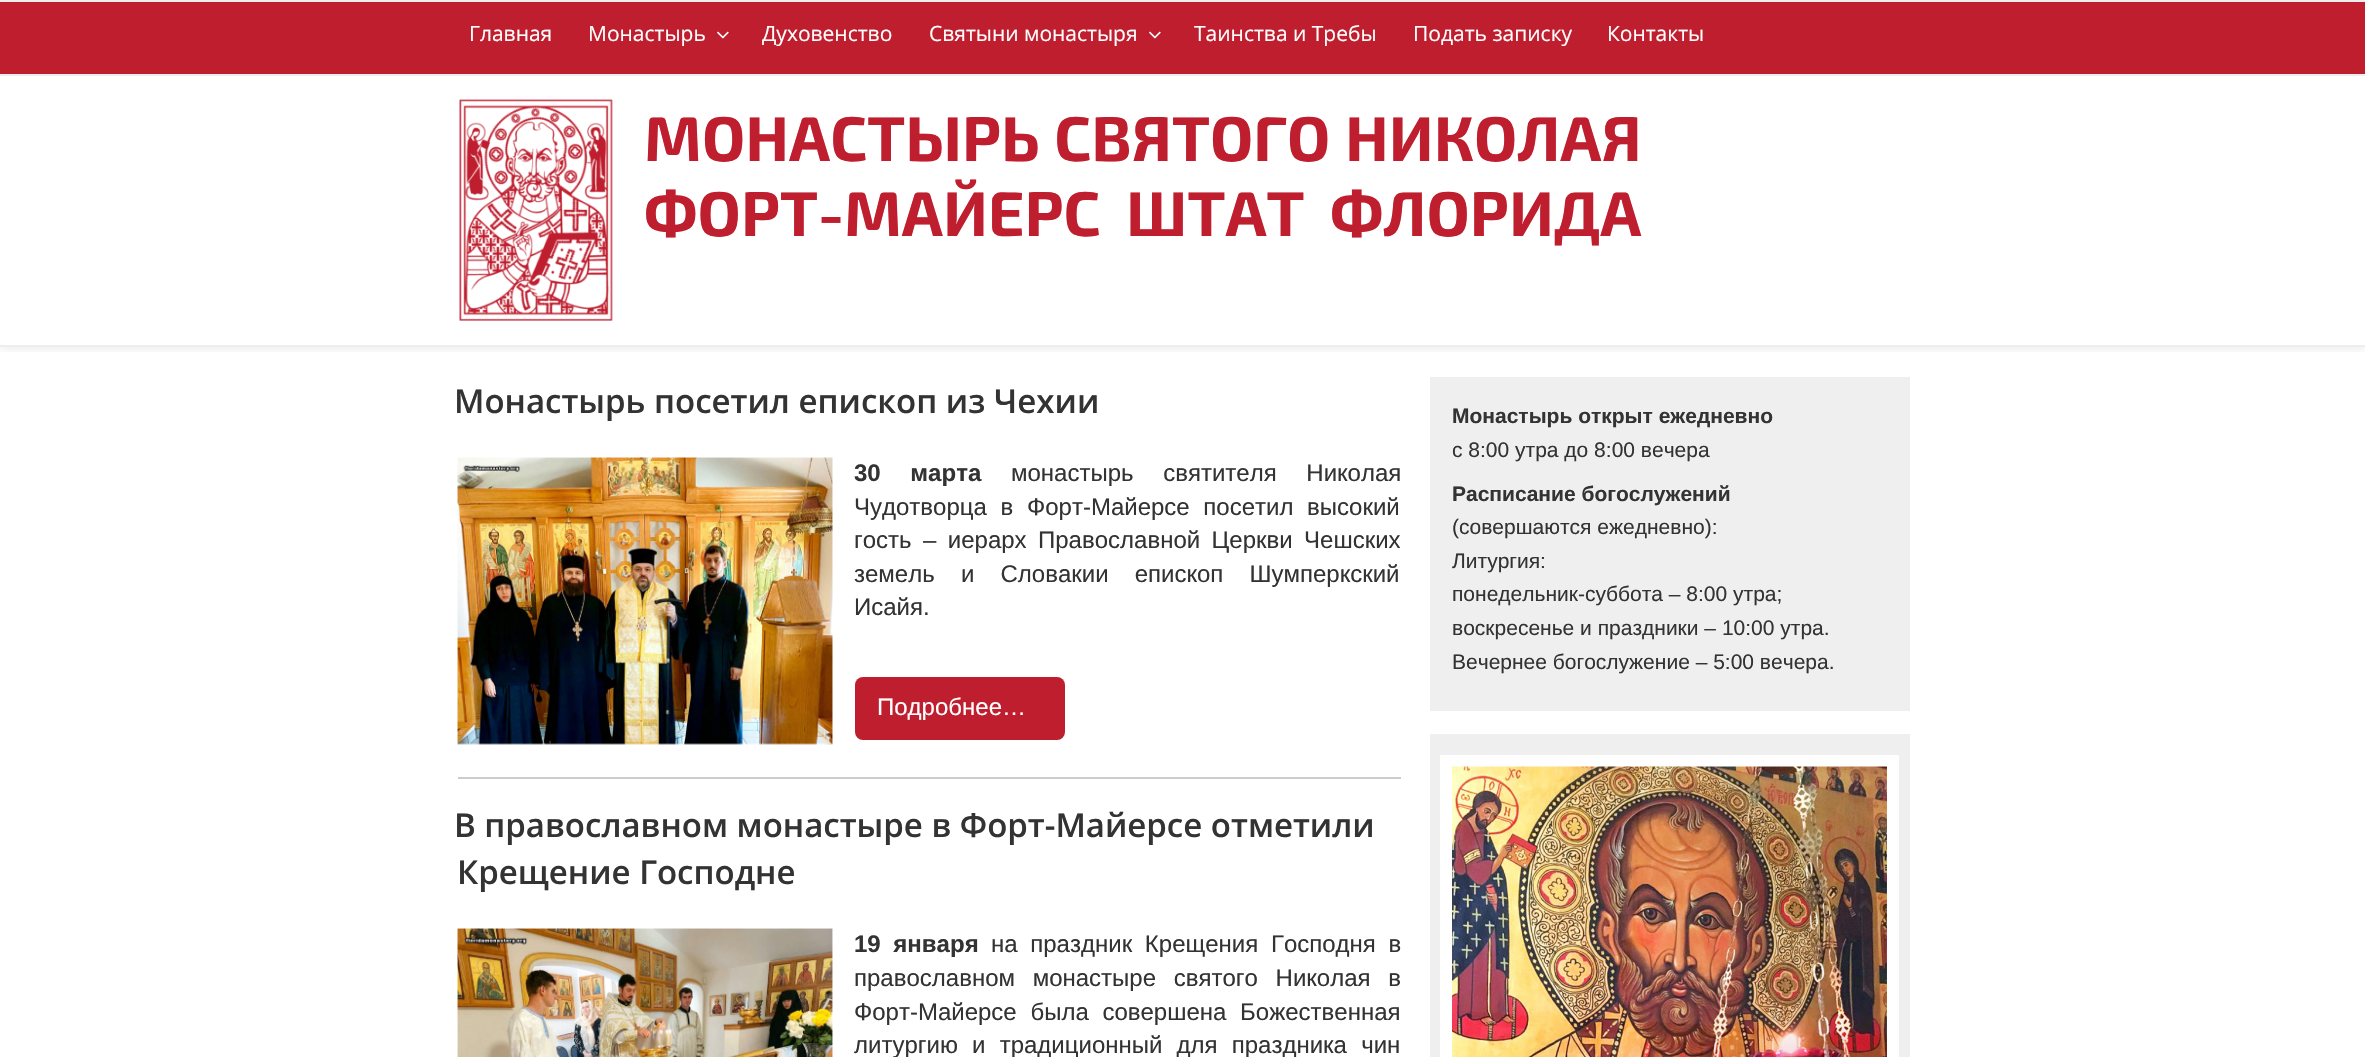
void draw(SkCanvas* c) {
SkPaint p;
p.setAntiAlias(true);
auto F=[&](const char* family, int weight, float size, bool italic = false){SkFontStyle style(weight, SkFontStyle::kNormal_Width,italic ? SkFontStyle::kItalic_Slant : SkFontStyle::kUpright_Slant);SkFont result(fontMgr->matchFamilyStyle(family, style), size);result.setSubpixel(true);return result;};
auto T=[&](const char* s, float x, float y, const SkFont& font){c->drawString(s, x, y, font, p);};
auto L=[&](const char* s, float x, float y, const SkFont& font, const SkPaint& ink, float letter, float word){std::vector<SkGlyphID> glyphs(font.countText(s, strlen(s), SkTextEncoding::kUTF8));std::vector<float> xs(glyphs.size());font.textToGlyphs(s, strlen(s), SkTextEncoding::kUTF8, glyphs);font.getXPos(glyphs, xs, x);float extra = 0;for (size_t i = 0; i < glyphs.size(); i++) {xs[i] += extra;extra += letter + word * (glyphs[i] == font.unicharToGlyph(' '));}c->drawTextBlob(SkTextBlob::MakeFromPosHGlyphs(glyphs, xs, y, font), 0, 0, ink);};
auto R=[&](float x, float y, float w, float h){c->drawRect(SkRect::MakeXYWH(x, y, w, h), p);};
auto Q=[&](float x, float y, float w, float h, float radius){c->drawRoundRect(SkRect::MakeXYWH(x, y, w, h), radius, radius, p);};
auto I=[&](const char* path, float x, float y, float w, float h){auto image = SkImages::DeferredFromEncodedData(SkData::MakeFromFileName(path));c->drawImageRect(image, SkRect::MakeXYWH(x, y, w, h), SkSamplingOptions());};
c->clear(0xffffffff);
c->save();
c->clipRect(SkRect::MakeXYWH(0,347,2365,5));
p.setColor(0x1a000000);
p.setMaskFilter(SkMaskFilter::MakeBlur(kNormal_SkBlurStyle, 6));
c->drawRect(SkRect::MakeXYWH(0,0,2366,347),p);
p.setMaskFilter(nullptr);
c->restore();
p.setColor(0xffbf1e2e);
R(0,2,2365,72);
p.setColor(0xffeeeeee);
R(0,0,2365,2);
R(0,74,2365,2);
auto f1 = F("Open Sans",400,21);
p.setColor(0xffffffff);
T("Главная",469,41,f1);
T("Монастырь",588,41,f1);
I("1.png",717,31,12,8);
T("Духовенство",762,41,f1);
T("Святыни монастыря",929,41,f1);
I("1.png",1149,31,12,8);
T("Таинства и Требы",1194,41,f1);
T("Подать записку",1413,41,f1);
T("Контакты",1607,41,f1);
p.setColor(0xffeeeeee);
R(0,345,2365,2);
I("2.png",459,99,154,222);
auto f2 = F("Exo 2",700,63);
p.setColor(0xffbf1e2e);
L("МОНАСТЫРЬ СВЯТОГО НИКОЛАЯ",644,161,f2,p,0,1);
L("ФОРТ-МАЙЕРС ШТАТ ФЛОРИДА",644,236,f2,p,0,12);
p.setColor(0xffcccccc);
R(458,777,943,2);
auto f3 = F("Open Sans",600,33);
p.setColor(0xff333333);
T("Монастырь посетил епископ из Чехии",454,413,f3);
I("3.png",457,457,376,288);
auto f4 = F("Liberation Sans",700,24);
L("30 марта",854,481,f4,p,0,23);
auto f5 = F("Liberation Sans",400,24);
L("монастырь святителя Николая",1011,481,f5,p,0,23);
L("Чудотворца в Форт-Майерсе посетил высокий",854,515,f5,p,0,7);
L("гость – иерарх Православной Церкви Чешских",854,548,f5,p,0,4.75);
L("земель и Словакии епископ Шумперкский",854,582,f5,p,0,19.5);
T("Исайя.",854,615,f5);
p.setColor(0xffbf1e2e);
Q(855,677,210,63,8);
p.setColor(0xffffffff);
T("Подробнее…",877,715,f5);
p.setColor(0xff333333);
T("В православном монастыре в Форт-Майерсе отметили",454,837,f3);
T("Крещение Господне",457,884,f3);
I("4.png",457,928,376,129);
L("19 января",854,952,f4,p,0,6);
L("на праздник Крещения Господня в",991,952,f5,p,0,6);
L("православном монастыре святого Николая в",854,986,f5,p,0,11);
L("Форт-Майерсе была совершена Божественная",854,1020,f5,p,0,7);
L("литургию и традиционный для праздника чин",854,1053,f5,p,0,7.5);
p.setColor(0xffefefef);
R(1430,377,480,334);
auto f6 = F("Liberation Sans",700,21);
p.setColor(0xff333333);
T("Монастырь открыт ежедневно",1452,423,f6);
auto f7 = F("Liberation Sans",400,21);
T("с 8:00 утра до 8:00 вечера",1452,457,f7);
T("Расписание богослужений",1452,501,f6);
T("(совершаются ежедневно):",1452,534,f7);
T("Литургия:",1452,568,f7);
T("понедельник-суббота – 8:00 утра;",1452,601,f7);
T("воскресенье и праздники – 10:00 утра.",1452,635,f7);
T("Вечернее богослужение – 5:00 вечера.",1452,669,f7);
p.setColor(0xffefefef);
R(1430,734,480,323);
p.setStroke(true);
p.setStrokeWidth(12);
p.setColor(0xffffffff);
c->drawRect(SkRect::MakeXYWH(1446,761,447,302),p);
I("5.png",1452,766,435,291);
}
